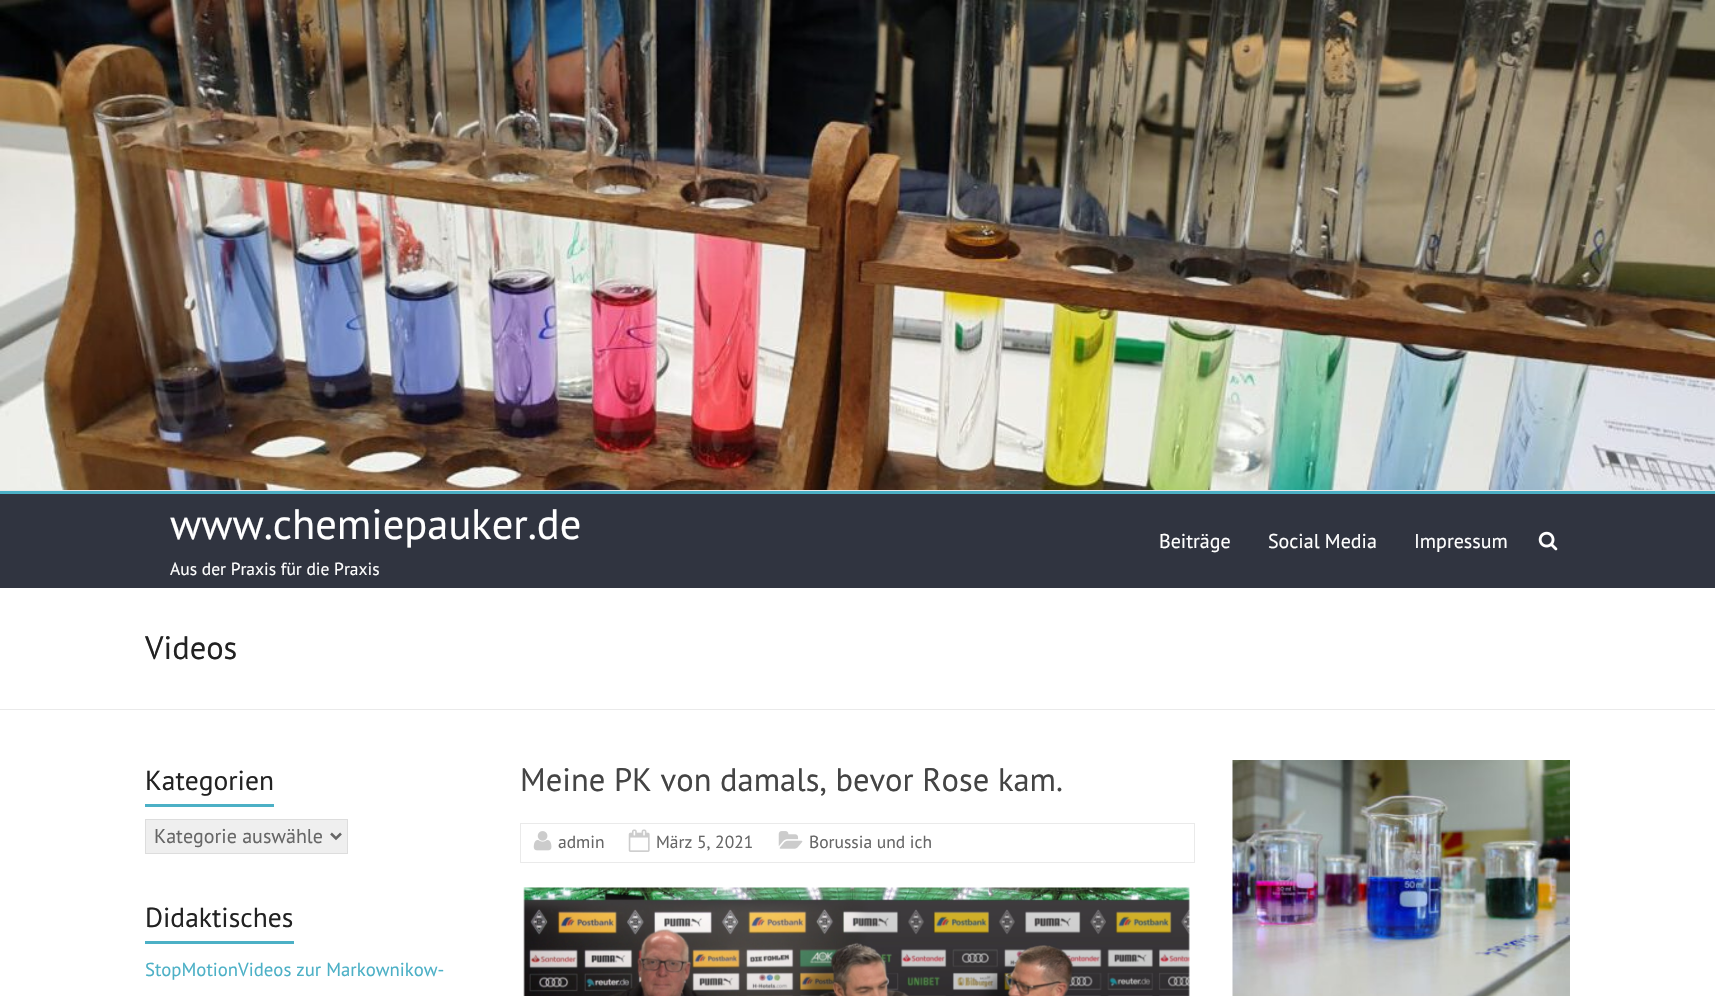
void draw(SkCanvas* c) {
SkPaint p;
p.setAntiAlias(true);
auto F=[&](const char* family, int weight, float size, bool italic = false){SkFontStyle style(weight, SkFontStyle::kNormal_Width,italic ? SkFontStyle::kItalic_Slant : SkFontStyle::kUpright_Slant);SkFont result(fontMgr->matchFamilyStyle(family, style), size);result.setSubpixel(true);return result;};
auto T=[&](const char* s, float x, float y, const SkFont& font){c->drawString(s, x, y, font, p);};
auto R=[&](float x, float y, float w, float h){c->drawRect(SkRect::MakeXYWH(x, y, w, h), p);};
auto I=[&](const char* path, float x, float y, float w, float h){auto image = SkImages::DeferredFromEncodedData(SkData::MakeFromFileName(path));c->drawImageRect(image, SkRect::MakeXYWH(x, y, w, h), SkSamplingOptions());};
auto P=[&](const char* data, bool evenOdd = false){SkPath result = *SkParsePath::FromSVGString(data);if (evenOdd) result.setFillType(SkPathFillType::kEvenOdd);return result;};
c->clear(0xffffffff);
I("1.png",0,0,1715,490);
p.setColor(0xffeaeaea);
R(0,490,1715,1);
p.setColor(0xff303440);
R(0,494,1715,94);
p.setColor(0xff4cb0c6);
R(0,491,1715,3);
auto f1 = F("PT Sans",400,42.5);
p.setColor(0xffffffff);
T("www.chemiepauker.de",170,539,f1);
auto f2 = F("PT Sans",400,17.5);
T("Aus der Praxis für die Praxis",170,575,f2);
auto f3 = F("PT Sans",400,20);
T("Beiträge",1159,548,f3);
T("Social Media",1268,548,f3);
T("Impressum",1414,548,f3);
I("2.png",1538,531,20,20);
p.setColor(0xffeaeaea);
R(0,709,1715,1);
auto f4 = F("PT Sans",400,32.5);
p.setColor(0xff222222);
T("Videos",145,659,f4);
auto f5 = F("PT Sans",400,27.5);
T("Kategorien",145,790,f5);
p.setColor(0xff4cb0c6);
R(145,804,129,3);
p.setColor(0xffefefef);
c->drawRect(SkRect::MakeXYWH(145.5,819.5,202,34),p);
p.setStroke(true);
p.setStrokeWidth(1);
p.setColor(0xffdddddd);
c->drawRect(SkRect::MakeXYWH(145.5,819.5,202,34),p);
p.setStrokeWidth(2.5);
p.setColor(0xff666666);
c->drawPath(P("M331 833.5l5 5l5-5"),p);
p.setStroke(false);
T("Kategorie auswähle",154,843,f3);
p.setColor(0xff222222);
T("Didaktisches",145,927,f5);
p.setColor(0xff4cb0c6);
R(145,941,149,3);
auto f6 = F("PT Sans",400,18.75);
T("StopMotionVideos zur Markownikow-",145,976,f6);
p.setColor(0xff444444);
T("Meine PK von damals, bevor Rose kam.",520,791,f4);
p.setStroke(true);
p.setStrokeWidth(1);
p.setColor(0xffeaeaea);
c->drawRect(SkRect::MakeXYWH(520.5,823.5,674,39),p);
I("3.png",533,831,19,20);
p.setStroke(false);
p.setColor(0xff666666);
T("admin",558,848,f2);
I("4.png",628,829,22,23);
T("März 5, 2021",656,848,f2);
I("5.png",778,831,25,18);
T("Borussia und ich",809,848,f2);
I("6.png",523,887,667,109);
I("7.png",1232,760,338,236);
}
